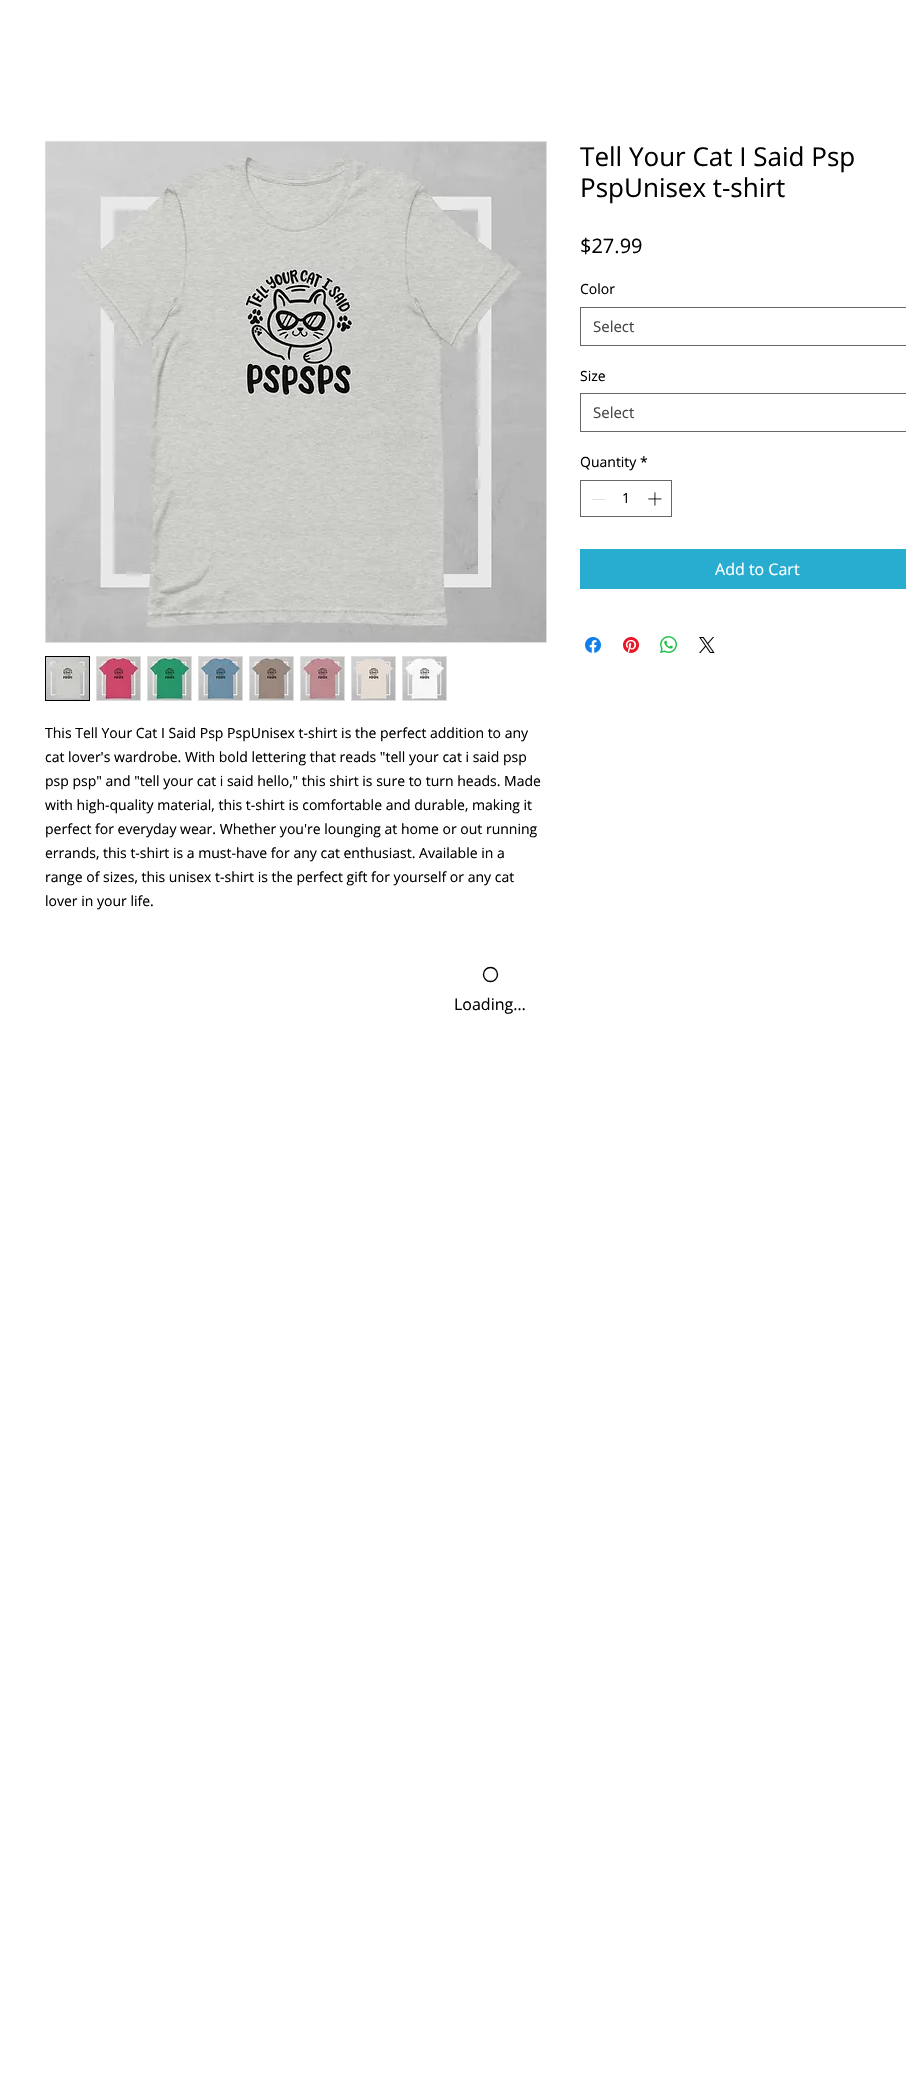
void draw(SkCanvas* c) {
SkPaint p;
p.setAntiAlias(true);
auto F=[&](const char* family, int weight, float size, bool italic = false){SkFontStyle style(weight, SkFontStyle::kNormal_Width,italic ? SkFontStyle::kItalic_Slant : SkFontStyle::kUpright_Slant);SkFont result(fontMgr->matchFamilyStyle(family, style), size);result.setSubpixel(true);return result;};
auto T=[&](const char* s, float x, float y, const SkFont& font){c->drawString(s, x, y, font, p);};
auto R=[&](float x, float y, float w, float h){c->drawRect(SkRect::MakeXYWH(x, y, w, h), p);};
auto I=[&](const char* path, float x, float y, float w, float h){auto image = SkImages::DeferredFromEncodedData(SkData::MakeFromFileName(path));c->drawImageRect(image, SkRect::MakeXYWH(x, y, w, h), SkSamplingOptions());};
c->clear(0xffffffff);
auto f1 = F("Open Sans",400,26);
p.setColor(0xff000000);
T("Tell Your Cat I Said Psp",580,166,f1);
T("PspUnisex t-shirt",580,197,f1);
auto f2 = F("Open Sans",400,20);
T("$27.99",580,253,f2);
auto f3 = F("Open Sans",400,14);
T("Color",580,294,f3);
p.setStroke(true);
p.setStrokeWidth(1);
p.setColor(0xff666666);
c->drawRect(SkRect::MakeXYWH(580.5,307.5,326,38),p);
auto f4 = F("Open Sans",400,15);
p.setStroke(false);
p.setColor(0xff444444);
T("Select",593,332,f4);
p.setColor(0xff000000);
T("Size",580,381,f3);
p.setStroke(true);
p.setColor(0xff666666);
c->drawRect(SkRect::MakeXYWH(580.5,393.5,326,38),p);
p.setStroke(false);
p.setColor(0xff444444);
T("Select",593,418,f4);
p.setColor(0xff000000);
T("Quantity",580,467,f3);
T("*",640,467,f3);
p.setStroke(true);
p.setColor(0xff666666);
c->drawRect(SkRect::MakeXYWH(580.5,480.5,91,36),p);
p.setStroke(false);
p.setColor(0xffe3e3e3);
R(592,499,13,1);
p.setColor(0xff000000);
T("1",622,503,f3);
I("1.png",648,492,14,14);
p.setColor(0xff28add1);
R(580,549,326,40);
auto f5 = F("Open Sans",400,16);
p.setColor(0xffffffff);
T("Add to Cart",715,575,f5);
I("2.png",585,637,16,16);
I("3.png",623,637,16,16);
I("4.png",660,636,17,17);
I("5.png",699,637,16,16);
p.setStroke(true);
p.setColor(0xffdddddd);
c->drawRect(SkRect::MakeXYWH(45.5,141.5,501,501),p);
I("6.png",46,142,500,500);
p.setColor(0xff000000);
c->drawRect(SkRect::MakeXYWH(45.5,656.5,44,44),p);
I("7.png",46,657,43,43);
p.setColor(0xffdddddd);
c->drawRect(SkRect::MakeXYWH(96.5,656.5,44,44),p);
I("8.png",97,657,43,43);
c->drawRect(SkRect::MakeXYWH(147.5,656.5,44,44),p);
I("9.png",148,657,43,43);
c->drawRect(SkRect::MakeXYWH(198.5,656.5,44,44),p);
I("10.png",199,657,43,43);
c->drawRect(SkRect::MakeXYWH(249.5,656.5,44,44),p);
I("11.png",250,657,43,43);
c->drawRect(SkRect::MakeXYWH(300.5,656.5,44,44),p);
I("12.png",301,657,43,43);
c->drawRect(SkRect::MakeXYWH(351.5,656.5,44,44),p);
I("13.png",352,657,43,43);
c->drawRect(SkRect::MakeXYWH(402.5,656.5,44,44),p);
I("14.png",403,657,43,43);
p.setStroke(false);
p.setColor(0xff000000);
T("This Tell Your Cat I Said Psp PspUnisex t-shirt is the perfect addition to any",45,738,f3);
T("cat lover's wardrobe. With bold lettering that reads \"tell your cat i said psp",45,762,f3);
T("psp psp\" and \"tell your cat i said hello,\" this shirt is sure to turn heads. Made",45,786,f3);
T("with high-quality material, this t-shirt is comfortable and durable, making it",45,810,f3);
T("perfect for everyday wear. Whether you're lounging at home or out running",45,834,f3);
T("errands, this t-shirt is a must-have for any cat enthusiast. Available in a",45,858,f3);
T("range of sizes, this unisex t-shirt is the perfect gift for yourself or any cat",45,882,f3);
T("lover in your life.",45,906,f3);
p.setStroke(true);
p.setStrokeWidth(1.4);
c->drawCircle(490.5,974.5,7,p);
p.setStroke(false);
T("Loading…",454,1010,f5);
}
